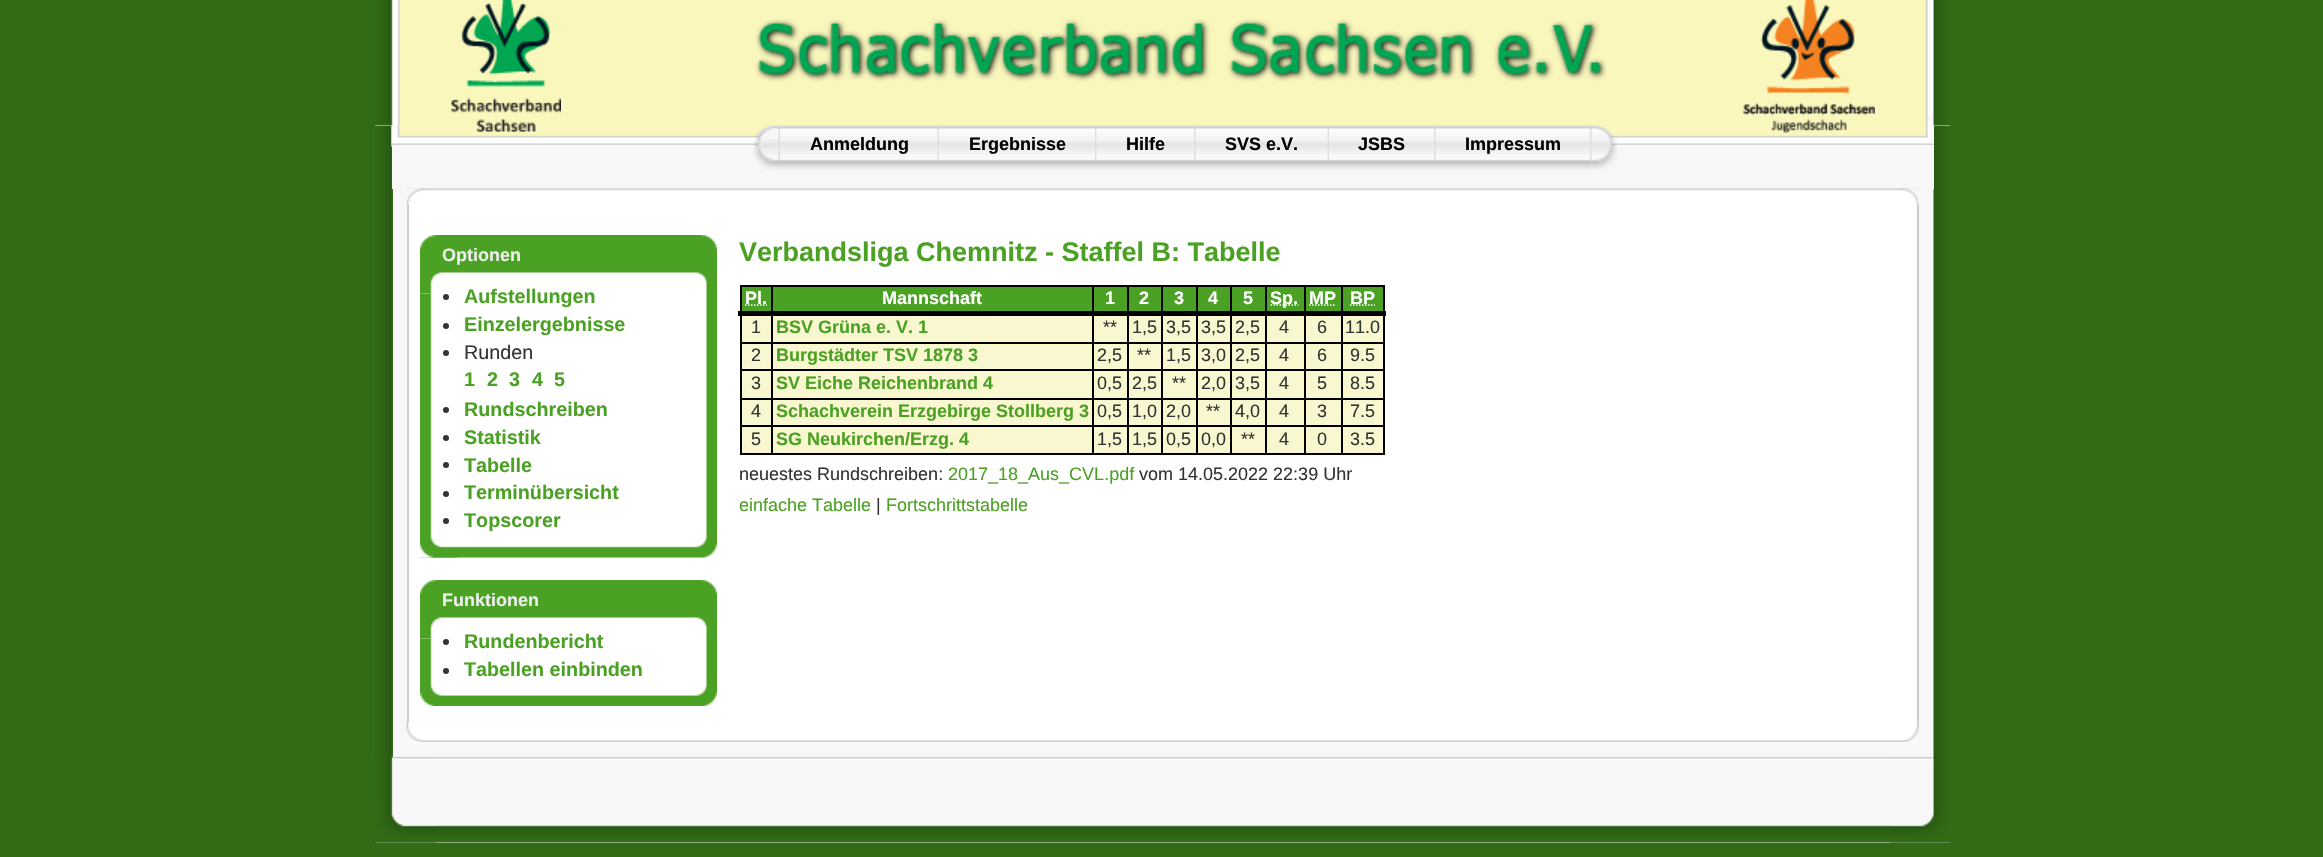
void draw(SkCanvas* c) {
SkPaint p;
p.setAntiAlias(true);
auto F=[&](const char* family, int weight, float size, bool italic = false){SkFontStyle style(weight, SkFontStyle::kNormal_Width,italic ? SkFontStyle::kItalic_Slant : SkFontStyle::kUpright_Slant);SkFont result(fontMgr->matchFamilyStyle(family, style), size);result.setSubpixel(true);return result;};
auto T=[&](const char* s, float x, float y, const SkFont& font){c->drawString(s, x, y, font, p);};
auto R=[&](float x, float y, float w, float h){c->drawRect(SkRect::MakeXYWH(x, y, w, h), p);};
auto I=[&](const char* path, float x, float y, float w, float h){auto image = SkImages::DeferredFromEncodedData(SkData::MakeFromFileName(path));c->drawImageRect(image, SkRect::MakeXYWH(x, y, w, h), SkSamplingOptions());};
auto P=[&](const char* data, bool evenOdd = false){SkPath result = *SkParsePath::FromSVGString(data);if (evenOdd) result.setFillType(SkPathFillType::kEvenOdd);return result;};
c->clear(0xff316b16);
p.setColor(0xfff7f7f7);
R(393,189,1541,568);
I("1.png",375,126,18,631);
I("2.png",1933,126,17,631);
p.setColor(0xfff9f7bc);
R(375,0,1575,126);
p.setColor(0xfff7f7f7);
R(392,126,1542,63);
I("8.png",391,126,1543,21);
I("9.png",391,125,9,22);
I("3.png",375,0,25,126);
I("10.png",1925,125,9,20);
I("4.png",1925,0,25,126);
I("5.png",755,19,852,63);
I("6.png",450,0,111,133);
I("7.png",1743,0,132,133);
I("11.png",753,125,27,45);
I("12.png",780,125,812,45);
I("13.png",937,125,2,36);
auto f1 = F("Liberation Sans",700,18);
p.setColor(0xff000000);
T("Anmeldung",810,150,f1);
I("14.png",1095,125,2,36);
T("Ergebnisse",969,150,f1);
I("14.png",1194,125,2,36);
T("Hilfe",1126,150,f1);
I("13.png",1327,125,2,36);
T("SVS e.V.",1225,150,f1);
I("14.png",1434,125,2,36);
T("JSBS",1358,150,f1);
I("16.png",1591,125,26,45);
I("15.png",1590,125,2,36);
T("Impressum",1465,150,f1);
p.setColor(0xffffffff);
R(407,189,1512,554);
I("17.png",406,188,1513,12);
I("18.png",406,188,22,16);
I("19.png",1899,188,20,16);
p.setColor(0xffcccccc);
R(1917,204,2,527);
R(407,204,2,527);
I("20.png",420,293,297,265);
I("21.png",420,293,38,265);
I("22.png",420,235,297,59);
I("23.png",420,235,22,59);
p.setColor(0xffeeeeee);
T("Optionen",442,261,f1);
p.setColor(0xff333333);
c->drawCircle(446,297,3,p);
auto f2 = F("Liberation Sans",700,19.75);
p.setColor(0xff4ba123);
T("Aufstellungen",464,303,f2);
p.setColor(0xff333333);
c->drawCircle(446,326,3,p);
p.setColor(0xff4ba123);
T("Einzelergebnisse",464,331,f2);
p.setColor(0xff333333);
c->drawCircle(446,353,3,p);
auto f3 = F("Liberation Sans",400,19.75);
T("Runden",464,359,f3);
p.setColor(0xff4ba123);
T("1",464,386,f2);
T("2",487,386,f2);
T("3",509,386,f2);
T("4",532,386,f2);
T("5",554,386,f2);
p.setColor(0xff333333);
c->drawCircle(446,410,3,p);
p.setColor(0xff4ba123);
T("Rundschreiben",464,416,f2);
p.setColor(0xff333333);
c->drawCircle(446,438,3,p);
p.setColor(0xff4ba123);
T("Statistik",464,444,f2);
p.setColor(0xff333333);
c->drawCircle(446,465,3,p);
p.setColor(0xff4ba123);
T("Tabelle",464,472,f2);
p.setColor(0xff333333);
c->drawCircle(446,494,3,p);
p.setColor(0xff4ba123);
T("Terminübersicht",464,499,f2);
p.setColor(0xff333333);
c->drawCircle(446,521,3,p);
p.setColor(0xff4ba123);
T("Topscorer",464,527,f2);
I("24.png",442,638,275,68);
I("25.png",420,638,22,68);
I("22.png",420,580,297,59);
I("23.png",420,580,22,59);
p.setColor(0xffeeeeee);
T("Funktionen",442,606,f1);
p.setColor(0xff333333);
c->drawCircle(446,642,3,p);
p.setColor(0xff4ba123);
T("Rundenbericht",464,648,f2);
p.setColor(0xff333333);
c->drawCircle(446,671,3,p);
p.setColor(0xff4ba123);
T("Tabellen einbinden",464,676,f2);
auto f4 = F("Liberation Sans",700,27);
T("Verbandsliga Chemnitz - Staffel B: Tabelle",739,261,f4);
p.setColor(0xff000000);
R(740,285,645,2);
p.setColor(0xfff9f7cf);
R(742,316,641,137);
p.setColor(0xff000000);
R(740,342,645,2);
R(740,369,645,2);
R(740,398,645,2);
R(740,425,645,2);
R(1383,425,2,30);
R(1383,398,2,28);
R(1383,369,2,30);
R(1383,312,2,59);
R(1383,285,2,29);
R(740,453,645,2);
R(740,425,2,30);
R(740,398,2,28);
R(740,369,2,30);
R(740,312,2,59);
R(740,285,2,29);
p.setColor(0xff4ba123);
R(742,287,29,24);
p.setColor(0xffffffff);
T("Pl.",745,304,f1);
p.setStroke(true);
p.setStrokeWidth(1.5);
p.setPathEffect(SkDashPathEffect::Make({{1.5f,1.5f}}, 0));
c->drawPath(P("M745 305h22"),p);
p.setPathEffect(nullptr);
p.setStroke(false);
p.setColor(0xff4ba123);
R(773,287,319,24);
p.setColor(0xffffffff);
T("Mannschaft",882,304,f1);
p.setColor(0xff4ba123);
R(1094,287,33,24);
p.setColor(0xffffffff);
T("1",1105,304,f1);
p.setColor(0xff4ba123);
R(1129,287,32,24);
p.setColor(0xffffffff);
T("2",1139,304,f1);
p.setColor(0xff4ba123);
R(1163,287,33,24);
p.setColor(0xffffffff);
T("3",1174,304,f1);
p.setColor(0xff4ba123);
R(1198,287,32,24);
p.setColor(0xffffffff);
T("4",1208,304,f1);
p.setColor(0xff4ba123);
R(1232,287,33,24);
p.setColor(0xffffffff);
T("5",1243,304,f1);
p.setColor(0xff4ba123);
R(1267,287,37,24);
p.setStroke(true);
p.setColor(0xffffffff);
p.setPathEffect(SkDashPathEffect::Make({{1.5f,1.5f}}, 0));
c->drawPath(P("M1270.5 305h28"),p);
p.setPathEffect(nullptr);
p.setStroke(false);
T("Sp.",1270,304,f1);
p.setColor(0xff4ba123);
R(1306,287,35,24);
p.setColor(0xffffffff);
T("MP",1309,304,f1);
p.setStroke(true);
p.setPathEffect(SkDashPathEffect::Make({{1.5f,1.5f}}, 0));
c->drawPath(P("M1309 305h27"),p);
p.setPathEffect(nullptr);
p.setStroke(false);
p.setColor(0xff4ba123);
R(1343,287,40,24);
p.setColor(0xff000000);
R(771,285,2,170);
R(1092,285,2,170);
R(1127,285,2,170);
R(1161,285,2,170);
R(1196,285,2,170);
R(1230,285,2,170);
R(1265,285,2,170);
R(1304,285,2,170);
R(1341,285,2,170);
R(738,311,648,5);
p.setColor(0xffffffff);
T("BP",1350,304,f1);
p.setStroke(true);
p.setPathEffect(SkDashPathEffect::Make({{1.5f,1.5f}}, 0));
c->drawPath(P("M1350 305h25"),p);
p.setPathEffect(nullptr);
auto f5 = F("Liberation Sans",400,18);
p.setStroke(false);
p.setColor(0xff333333);
T("1",751,333,f5);
p.setColor(0xff4ba123);
T("BSV Grüna e. V. 1",776,333,f1);
p.setColor(0xff333333);
T("**",1103,333,f5);
T("1,5",1132,333,f5);
T("3,5",1166,333,f5);
T("3,5",1201,333,f5);
T("2,5",1235,333,f5);
T("4",1279,333,f5);
T("6",1317,333,f5);
T("11.0",1345,333,f5);
T("2",751,361,f5);
p.setColor(0xff4ba123);
T("Burgstädter TSV 1878 3",776,361,f1);
p.setColor(0xff333333);
T("2,5",1097,361,f5);
T("**",1137,361,f5);
T("1,5",1166,361,f5);
T("3,0",1201,361,f5);
T("2,5",1235,361,f5);
T("4",1279,361,f5);
T("6",1317,361,f5);
T("9.5",1350,361,f5);
T("3",751,389,f5);
p.setColor(0xff4ba123);
T("SV Eiche Reichenbrand 4",776,389,f1);
p.setColor(0xff333333);
T("0,5",1097,389,f5);
T("2,5",1132,389,f5);
T("**",1172,389,f5);
T("2,0",1201,389,f5);
T("3,5",1235,389,f5);
T("4",1279,389,f5);
T("5",1317,389,f5);
T("8.5",1350,389,f5);
T("4",751,417,f5);
p.setColor(0xff4ba123);
T("Schachverein Erzgebirge Stollberg 3",776,417,f1);
p.setColor(0xff333333);
T("0,5",1097,417,f5);
T("1,0",1132,417,f5);
T("2,0",1166,417,f5);
T("**",1206,417,f5);
T("4,0",1235,417,f5);
T("4",1279,417,f5);
T("3",1317,417,f5);
T("7.5",1350,417,f5);
T("5",751,445,f5);
p.setColor(0xff4ba123);
T("SG Neukirchen/Erzg. 4",776,445,f1);
p.setColor(0xff333333);
T("1,5",1097,445,f5);
T("1,5",1132,445,f5);
T("0,5",1166,445,f5);
T("0,0",1201,445,f5);
T("**",1241,445,f5);
T("4",1279,445,f5);
T("0",1317,445,f5);
T("3.5",1350,445,f5);
T("neuestes Rundschreiben:",739,480,f5);
p.setColor(0xff4ba123);
T("2017_18_Aus_CVL.pdf",948,480,f5);
p.setColor(0xff333333);
T("vom 14.05.2022 22:39 Uhr",1139,480,f5);
p.setColor(0xff4ba123);
T("einfache Tabelle",739,511,f5);
p.setColor(0xff333333);
T("|",876,511,f5);
p.setColor(0xff4ba123);
T("Fortschrittstabelle",886,511,f5);
I("26.png",406,727,1513,15);
I("27.png",406,722,17,20);
I("28.png",1903,722,16,20);
p.setColor(0xfff7f7f7);
R(375,842,1575,1);
I("29.png",375,757,1575,86);
I("30.png",375,757,62,86);
I("31.png",1890,757,60,86);
}
